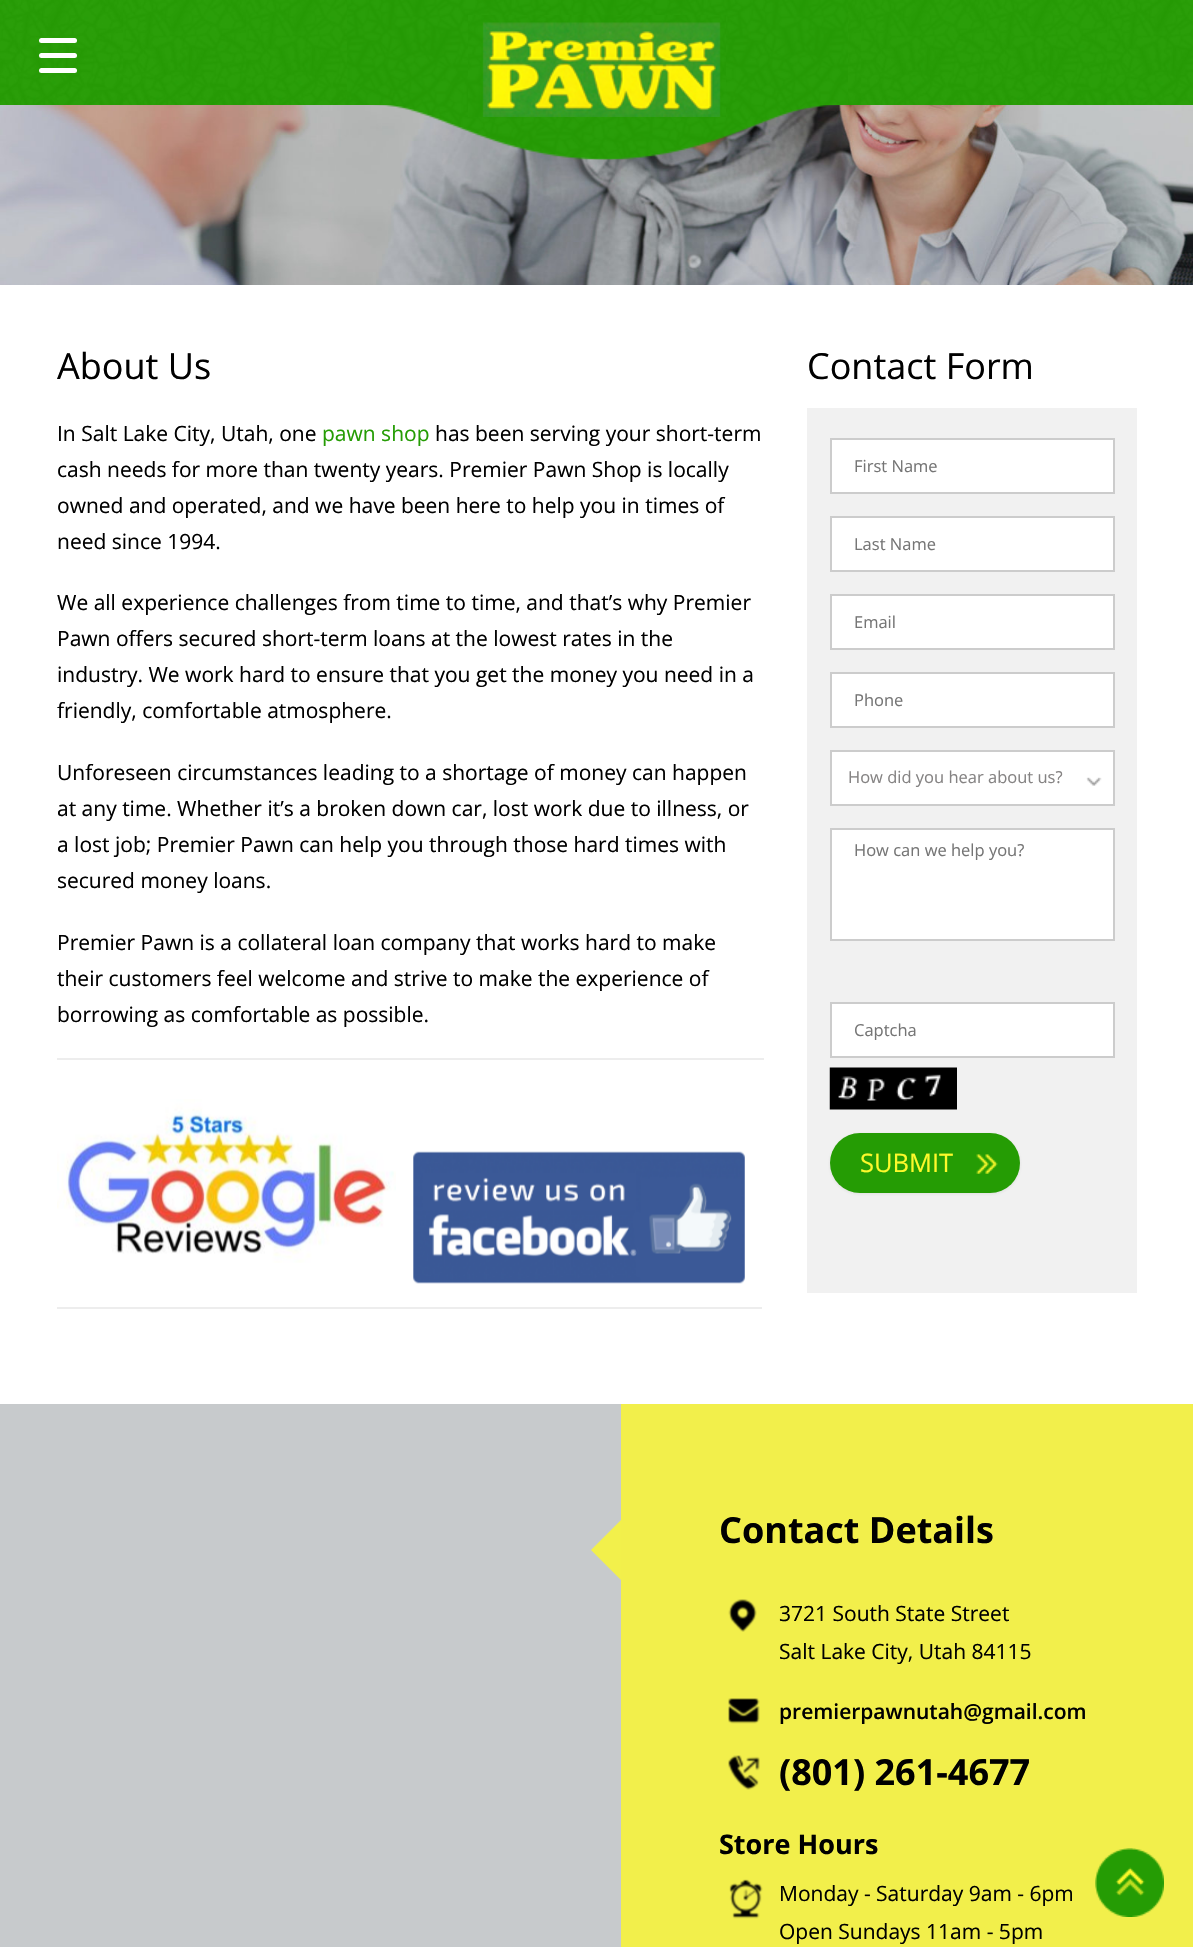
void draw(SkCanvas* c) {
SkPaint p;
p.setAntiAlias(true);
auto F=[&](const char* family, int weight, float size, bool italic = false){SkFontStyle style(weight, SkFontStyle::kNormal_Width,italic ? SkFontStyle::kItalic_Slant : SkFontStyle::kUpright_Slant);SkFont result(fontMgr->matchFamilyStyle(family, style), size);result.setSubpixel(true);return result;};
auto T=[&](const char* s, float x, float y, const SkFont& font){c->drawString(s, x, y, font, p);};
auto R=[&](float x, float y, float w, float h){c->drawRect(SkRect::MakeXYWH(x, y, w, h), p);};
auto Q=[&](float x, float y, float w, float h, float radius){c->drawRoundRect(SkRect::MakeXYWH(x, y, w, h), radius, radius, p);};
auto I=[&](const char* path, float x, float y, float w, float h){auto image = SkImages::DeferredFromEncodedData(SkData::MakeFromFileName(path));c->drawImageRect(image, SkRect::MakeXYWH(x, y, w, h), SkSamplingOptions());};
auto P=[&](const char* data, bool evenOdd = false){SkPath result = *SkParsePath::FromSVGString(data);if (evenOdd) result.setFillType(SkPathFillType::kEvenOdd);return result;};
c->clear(0xffffffff);
I("1.png",0,0,1193,105);
I("4.png",0,105,1193,180);
I("2.png",347,0,501,160);
I("3.png",468,15,258,102);
p.setColor(0xffffffff);
Q(39,53,38,5,2.5);
Q(39,38,38,5,2.5);
Q(39,68,38,5,2.5);
auto f1 = F("Open Sans",400,36);
p.setColor(0xff000000);
T("About Us",57,379,f1);
auto f2 = F("Open Sans",400,21);
T("In Salt Lake City, Utah, one",57,441,f2);
p.setColor(0xff259c04);
T("pawn shop",322,441,f2);
p.setColor(0xff000000);
T("has been serving your short-term",435,441,f2);
T("cash needs for more than twenty years. Premier Pawn Shop is locally",57,477,f2);
T("owned and operated, and we have been here to help you in times of",57,513,f2);
T("need since 1994.",57,549,f2);
T("We all experience challenges from time to time, and that’s why Premier",57,610,f2);
T("Pawn offers secured short-term loans at the lowest rates in the",57,646,f2);
T("industry. We work hard to ensure that you get the money you need in a",57,682,f2);
T("friendly, comfortable atmosphere.",57,718,f2);
T("Unforeseen circumstances leading to a shortage of money can happen",57,780,f2);
T("at any time. Whether it’s a broken down car, lost work due to illness, or",57,816,f2);
T("a lost job; Premier Pawn can help you through those hard times with",57,852,f2);
T("secured money loans.",57,888,f2);
T("Premier Pawn is a collateral loan company that works hard to make",57,950,f2);
T("their customers feel welcome and strive to make the experience of",57,986,f2);
T("borrowing as comfortable as possible.",57,1022,f2);
p.setColor(0xffededed);
R(57,1307,705,2);
R(57,1058,707,2);
I("5.png",413,1151,332,133);
I("6.png",57,1099,339,164);
p.setColor(0xff000000);
T("Contact Form",807,379,f1);
p.setColor(0xfff1f1f1);
R(807,408,330,885);
p.setColor(0xffffffff);
c->drawRect(SkRect::MakeXYWH(831,439,283,54),p);
p.setStroke(true);
p.setStrokeWidth(2);
p.setColor(0xffcccccc);
c->drawRect(SkRect::MakeXYWH(831,439,283,54),p);
auto f3 = F("Open Sans",400,16.5);
p.setStroke(false);
p.setColor(0xff757575);
T("First Name",854,472,f3);
p.setColor(0xffffffff);
c->drawRect(SkRect::MakeXYWH(831,517,283,54),p);
p.setStroke(true);
p.setColor(0xffcccccc);
c->drawRect(SkRect::MakeXYWH(831,517,283,54),p);
p.setStroke(false);
p.setColor(0xff757575);
T("Last Name",854,550,f3);
p.setColor(0xffffffff);
c->drawRect(SkRect::MakeXYWH(831,595,283,54),p);
p.setStroke(true);
p.setColor(0xffcccccc);
c->drawRect(SkRect::MakeXYWH(831,595,283,54),p);
p.setStroke(false);
p.setColor(0xff757575);
T("Email",854,628,f3);
p.setColor(0xffffffff);
c->drawRect(SkRect::MakeXYWH(831,673,283,54),p);
p.setStroke(true);
p.setColor(0xffcccccc);
c->drawRect(SkRect::MakeXYWH(831,673,283,54),p);
p.setStroke(false);
p.setColor(0xff757575);
T("Phone",854,706,f3);
p.setColor(0xffffffff);
R(832,752,281,52);
I("7.png",1086,777,16,9);
p.setStroke(true);
p.setColor(0xffcccccc);
c->drawRect(SkRect::MakeXYWH(831,751,283,54),p);
p.setStroke(false);
p.setColor(0xff858383);
T("How did you hear about us?",848,783,f3);
p.setColor(0xffffffff);
c->drawRect(SkRect::MakeXYWH(831,829,283,111),p);
p.setStroke(true);
p.setColor(0xffcccccc);
c->drawRect(SkRect::MakeXYWH(831,829,283,111),p);
p.setStroke(false);
p.setColor(0xff757575);
T("How can we help you?",854,856,f3);
p.setColor(0xffffffff);
c->drawRect(SkRect::MakeXYWH(831,1003,283,54),p);
p.setStroke(true);
p.setColor(0xffcccccc);
c->drawRect(SkRect::MakeXYWH(831,1003,283,54),p);
p.setStroke(false);
p.setColor(0xff757575);
T("Captcha",854,1036,f3);
I("8.png",829,1067,128,43);
p.setColor(0x1a404040);
p.setMaskFilter(SkMaskFilter::MakeBlur(kNormal_SkBlurStyle, 1.5));
c->drawRoundRect(SkRect::MakeXYWH(830,1134,190,60),30,30,p);
p.setMaskFilter(nullptr);
p.setColor(0xff259c04);
Q(830,1133,190,60,30);
I("9.png",976,1154,44,20);
auto f4 = F("Open Sans",400,25.5);
p.setColor(0xfffdf92b);
T("SUBMIT",860,1172,f4);
p.setColor(0xffc7cacc);
R(0,1404,621,543);
p.setColor(0xfff2ef4b);
R(621,1404,572,543);
p.setColor(0xfff2f04b);
c->drawPath(P("M621 1520v60l-30-30z"),p);
auto f5 = F("Open Sans",700,36);
p.setColor(0xff000000);
T("Contact Details",719,1543,f5);
I("10.png",728,1599,29,33);
T("3721 South State Street",779,1621,f2);
T("Salt Lake City, Utah 84115",779,1659,f2);
I("11.png",728,1698,32,26);
auto f6 = F("Open Sans",600,21);
T("premierpawnutah@gmail.com",779,1719,f6);
I("12.png",728,1755,32,35);
T("(801) 261-4677",779,1785,f5);
auto f7 = F("Open Sans",700,27);
T("Store Hours",719,1854,f7);
I("13.png",729,1879,34,40);
T("Monday - Saturday 9am - 6pm",779,1901,f2);
T("Open Sundays 11am - 5pm",779,1939,f2);
I("14.png",1095,1848,69,69);
}
